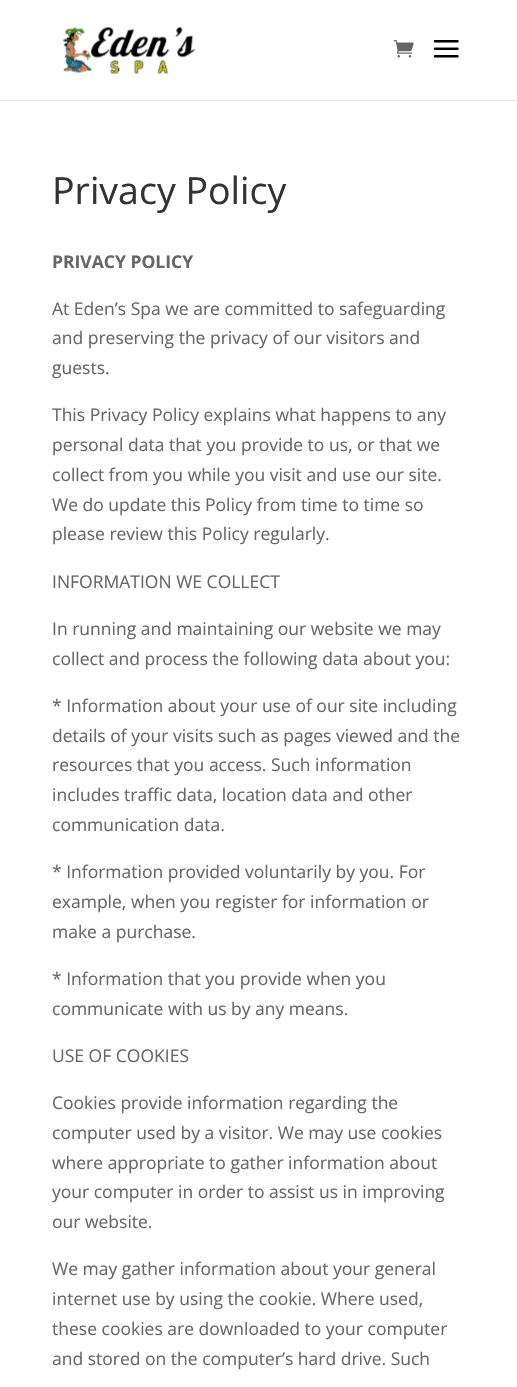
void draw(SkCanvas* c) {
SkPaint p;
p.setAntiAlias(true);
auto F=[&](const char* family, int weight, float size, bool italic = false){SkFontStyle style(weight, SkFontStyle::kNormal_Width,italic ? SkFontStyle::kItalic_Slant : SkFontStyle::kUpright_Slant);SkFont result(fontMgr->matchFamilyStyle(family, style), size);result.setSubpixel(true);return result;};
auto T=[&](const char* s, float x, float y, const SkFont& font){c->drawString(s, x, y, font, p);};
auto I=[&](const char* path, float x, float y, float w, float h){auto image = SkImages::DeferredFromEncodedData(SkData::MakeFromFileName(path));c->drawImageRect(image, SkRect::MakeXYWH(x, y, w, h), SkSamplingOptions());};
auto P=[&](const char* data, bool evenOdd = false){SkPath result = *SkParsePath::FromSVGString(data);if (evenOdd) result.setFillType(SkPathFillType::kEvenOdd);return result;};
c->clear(0xffffffff);
p.setColor(0xffe6e6e6);
c->drawPath(P("M0 100v1h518v-100v99z"),p);
I("1.png",63,27,133,47);
I("2.png",393,40,21,18);
I("3.png",433,40,26,18);
auto f1 = F("Open Sans",400,37.5);
p.setColor(0xff333333);
T("Privacy Policy",52,204,f1);
auto f2 = F("Open Sans",700,17.5);
p.setColor(0xff666666);
T("PRIVACY POLICY",52,268,f2);
auto f3 = F("Open Sans",400,17.5);
T("At Eden’s Spa we are committed to safeguarding",52,315,f3);
T("and preserving the privacy of our visitors and",52,344,f3);
T("guests.",52,374,f3);
T("This Privacy Policy explains what happens to any",52,421,f3);
T("personal data that you provide to us, or that we",52,451,f3);
T("collect from you while you visit and use our site.",52,481,f3);
T("We do update this Policy from time to time so",52,511,f3);
T("please review this Policy regularly.",52,540,f3);
T("INFORMATION WE COLLECT",52,588,f3);
T("In running and maintaining our website we may",52,635,f3);
T("collect and process the following data about you:",52,665,f3);
T("* Information about your use of our site including",52,712,f3);
T("details of your visits such as pages viewed and the",52,742,f3);
T("resources that you access. Such information",52,771,f3);
T("includes traffic data, location data and other",52,801,f3);
T("communication data.",52,831,f3);
T("* Information provided voluntarily by you. For",52,878,f3);
T("example, when you register for information or",52,908,f3);
T("make a purchase.",52,938,f3);
T("* Information that you provide when you",52,985,f3);
T("communicate with us by any means.",52,1015,f3);
T("USE OF COOKIES",52,1062,f3);
T("Cookies provide information regarding the",52,1109,f3);
T("computer used by a visitor. We may use cookies",52,1139,f3);
T("where appropriate to gather information about",52,1169,f3);
T("your computer in order to assist us in improving",52,1198,f3);
T("our website.",52,1228,f3);
T("We may gather information about your general",52,1275,f3);
T("internet use by using the cookie. Where used,",52,1305,f3);
T("these cookies are downloaded to your computer",52,1335,f3);
T("and stored on the computer’s hard drive. Such",52,1365,f3);
}
